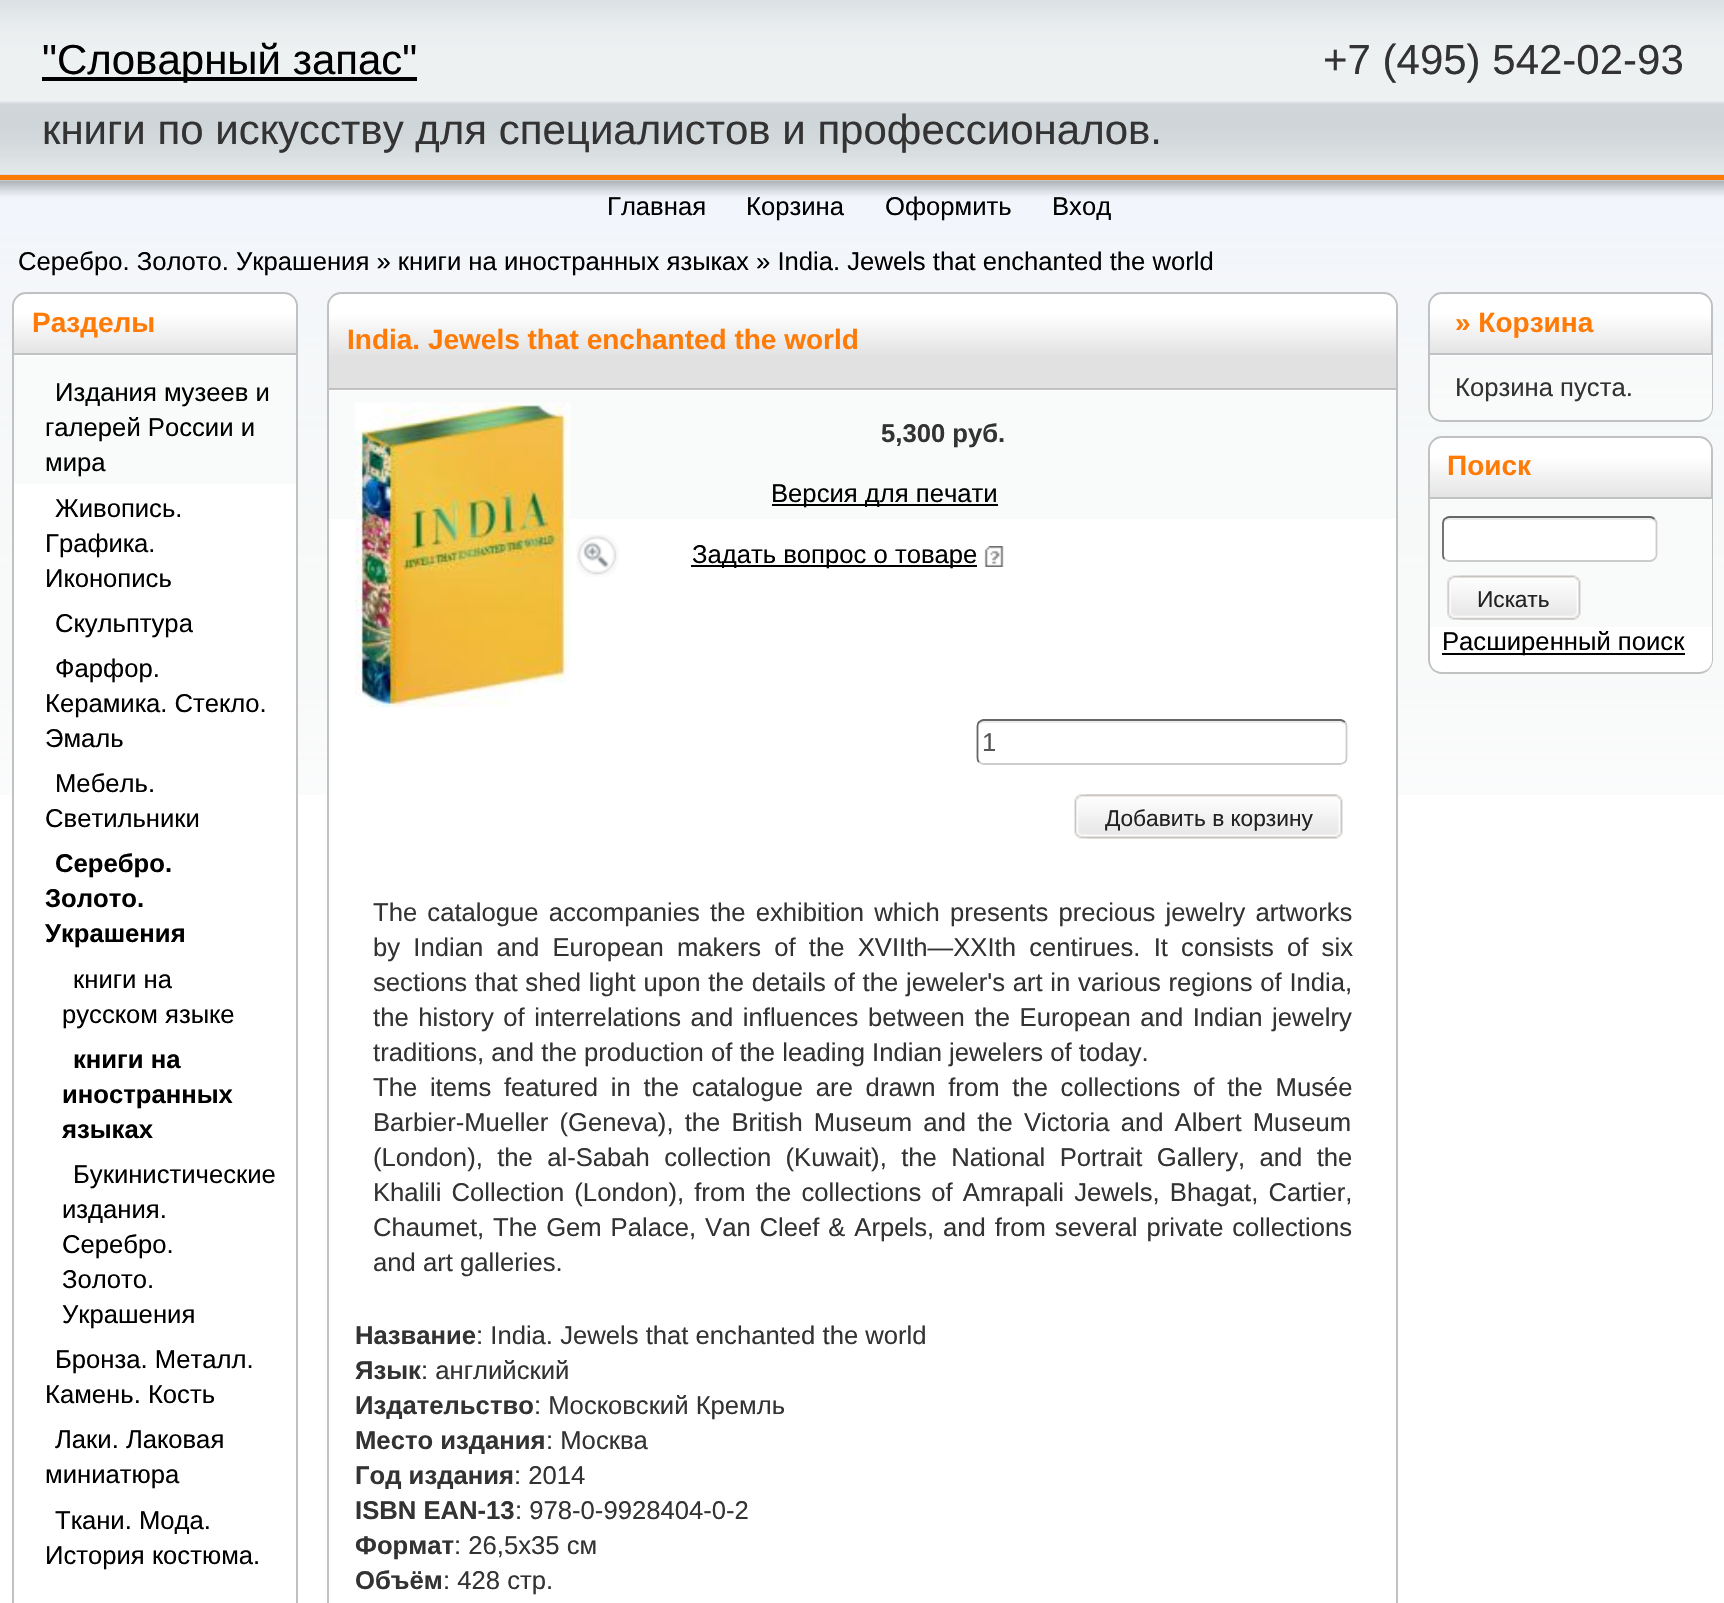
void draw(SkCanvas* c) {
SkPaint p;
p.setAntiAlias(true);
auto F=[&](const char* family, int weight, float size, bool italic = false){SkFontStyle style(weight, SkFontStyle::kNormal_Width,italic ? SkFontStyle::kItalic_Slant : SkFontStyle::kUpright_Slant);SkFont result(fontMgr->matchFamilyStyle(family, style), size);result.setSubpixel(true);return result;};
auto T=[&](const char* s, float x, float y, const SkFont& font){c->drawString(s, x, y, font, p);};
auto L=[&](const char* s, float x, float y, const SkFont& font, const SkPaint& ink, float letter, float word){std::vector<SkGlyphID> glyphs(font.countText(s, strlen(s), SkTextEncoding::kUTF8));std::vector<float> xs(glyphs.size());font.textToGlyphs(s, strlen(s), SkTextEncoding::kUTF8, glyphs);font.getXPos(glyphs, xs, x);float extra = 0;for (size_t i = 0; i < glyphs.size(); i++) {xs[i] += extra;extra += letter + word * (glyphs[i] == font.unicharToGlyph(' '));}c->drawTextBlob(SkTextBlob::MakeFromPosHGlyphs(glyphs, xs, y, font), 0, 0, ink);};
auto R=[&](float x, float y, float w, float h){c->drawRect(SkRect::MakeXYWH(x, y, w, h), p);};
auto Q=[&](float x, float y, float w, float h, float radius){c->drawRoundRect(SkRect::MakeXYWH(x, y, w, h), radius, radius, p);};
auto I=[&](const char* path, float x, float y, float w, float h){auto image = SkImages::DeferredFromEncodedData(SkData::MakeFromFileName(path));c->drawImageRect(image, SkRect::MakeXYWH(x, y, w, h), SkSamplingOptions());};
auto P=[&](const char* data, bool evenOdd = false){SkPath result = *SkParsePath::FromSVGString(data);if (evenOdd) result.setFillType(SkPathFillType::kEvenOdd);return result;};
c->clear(0xffffffff);
I("1.png",0,231,1724,564);
I("2.png",0,0,1724,175);
p.setColor(0xff000000);
R(42,77,375,4);
auto f1 = F("Liberation Sans",400,42);
T("\"Словарный запас\"",42,74,f1);
p.setColor(0xff333333);
T("книги по искусству для специалистов и профессионалов.",42,144,f1);
T("+7 (495) 542-02-93",1323,74,f1);
I("3.png",0,180,1724,51);
p.setColor(0xffff7b08);
R(0,175,1724,5);
auto f2 = F("Liberation Sans",400,25.65);
p.setColor(0xff000000);
T("Главная",607,215,f2);
T("Корзина",746,215,f2);
T("Оформить",885,215,f2);
T("Вход",1052,215,f2);
T("Серебро. Золото. Украшения » книги на иностранных языках » India. Jewels that enchanted the world",18,270,f2);
I("4.png",12,292,286,61);
p.setStroke(true);
p.setStrokeWidth(2);
p.setColor(0xffc0c1c2);
c->drawPath(P("M26 293h258c7 0 13 6 13 13v48h-284v-48c0-7 6-13 13-13z"),p);
auto f3 = F("Liberation Sans",700,28);
p.setStroke(false);
p.setColor(0xffff7b08);
T("Разделы",32,332,f3);
p.setColor(0xffffffff);
R(14,355,282,440);
p.setColor(0xfff9fafa);
R(14,356,282,128);
p.setColor(0xffc0c1c2);
c->drawPath(P("M12 355h286v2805c0 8-7 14-14 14h-258c-7 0-14-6-14-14zm2 0h282v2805c0 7-6 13-12 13h-258c-7 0-12-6-12-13z",true),p);
p.setColor(0xff000000);
T("Издания музеев и",55,401,f2);
T("галерей России и",45,436,f2);
T("мира",45,471,f2);
T("Живопись.",55,517,f2);
T("Графика.",45,552,f2);
T("Иконопись",45,587,f2);
T("Скульптура",55,632,f2);
T("Фарфор.",55,677,f2);
T("Керамика. Стекло.",45,712,f2);
T("Эмаль",45,747,f2);
T("Мебель.",55,792,f2);
T("Светильники",45,827,f2);
auto f4 = F("Liberation Sans",700,25.65);
T("Серебро.",55,872,f4);
T("Золото.",45,907,f4);
T("Украшения",45,942,f4);
T("книги на",73,988,f2);
T("русском языке",62,1023,f2);
T("книги на",73,1068,f4);
T("иностранных",62,1103,f4);
T("языках",62,1138,f4);
T("Букинистические",73,1183,f2);
T("издания.",62,1218,f2);
T("Серебро.",62,1253,f2);
T("Золото.",62,1288,f2);
T("Украшения",62,1323,f2);
T("Бронза. Металл.",55,1368,f2);
T("Камень. Кость",45,1403,f2);
T("Лаки. Лаковая",55,1448,f2);
T("миниатюра",45,1483,f2);
T("Ткани. Мода.",55,1529,f2);
T("История костюма.",45,1564,f2);
I("5.png",327,293,1071,95);
p.setStroke(true);
p.setColor(0xffc0c1c2);
c->drawPath(P("M341 293h1043c7 0 13 6 13 13v83h-1069v-83c0-7 6-13 13-13z"),p);
p.setStroke(false);
p.setColor(0xffff7b08);
T("India. Jewels that enchanted the world",347,349,f3);
p.setColor(0xffffffff);
R(329,390,1067,405);
p.setColor(0xfff9fafa);
R(329,391,1067,128);
p.setColor(0xffc0c1c2);
c->drawPath(P("M327 390h1071v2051c0 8-6 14-14 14h-1043c-7 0-14-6-14-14zm2 0h1067v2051c0 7-5 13-12 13h-1043c-7 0-12-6-12-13z",true),p);
I("6.png",355,402,216,305);
I("7.png",576,534,43,43);
p.setColor(0xff333333);
T("5,300 руб.",881,442,f4);
p.setColor(0xff000000);
R(772,504,226,2);
T("Версия для печати",771,502,f2);
R(691,565,286,2);
T("Задать вопрос о товаре",692,563,f2);
I("8.png",984,546,20,21);
p.setColor(0xffececec);
c->drawPath(P("M984 723h356c3 0 6 2 6 5c0-3-1-7-5-7h-358c-4 0-5 4-5 7c0-3 3-5 6-5z"),p);
p.setStroke(true);
p.setStrokeWidth(1.8);
p.setColor(0xffcccccc);
c->drawPath(P("M1345 722c1 1 1.5 2.5 1.5 4v32c0 1.5-.5 3-1.5 4c-1.5 1-3 2-4.5 2h-357c-1.5 0-3-1-4.5-2"),p);
p.setColor(0xff666666);
c->drawPath(P("M979 762c-1-1-1.5-2.5-1.5-4v-32c0-1.5 .5-3 1.5-4c1.5-1 3-2 4.5-2h357c1.5 0 3 1 4.5 2"),p);
p.setStroke(false);
p.setColor(0xff555555);
T("1",982,751,f2);
I("9.png",1074,794,263,45);
I("10.png",1086,794,257,45);
auto f5 = F("Liberation Sans",400,22.75);
p.setColor(0xff222222);
T("Добавить в корзину",1105,826,f5);
p.setColor(0xff333333);
L("The catalogue accompanies the exhibition which presents precious jewelry artworks",373,921,f2,p,0,3);
L("by Indian and European makers of the XVIIth—XXIth centirues. It consists of six",373,956,f2,p,0,6.1);
L("sections that shed light upon the details of the jeweler's art in various regions of India,",373,991,f2,p,0,.6);
L("the history of interrelations and influences between the European and Indian jewelry",373,1026,f2,p,0,2.4);
T("traditions, and the production of the leading Indian jewelers of today.",373,1061,f2);
L("The items featured in the catalogue are drawn from the collections of the Musée",373,1096,f2,p,0,5.6);
L("Barbier-Mueller (Geneva), the British Museum and the Victoria and Albert Museum",373,1131,f2,p,0,4);
L("(London), the al-Sabah collection (Kuwait), the National Portrait Gallery, and the",373,1166,f2,p,0,7.25);
L("Khalili Collection (London), from the collections of Amrapali Jewels, Bhagat, Cartier,",373,1201,f2,p,0,3);
L("Chaumet, The Gem Palace, Van Cleef & Arpels, and from several private collections",373,1236,f2,p,0,1.75);
T("and art galleries.",373,1271,f2);
T("Название",355,1344,f4);
T(": India. Jewels that enchanted the world",476,1344,f2);
T("Язык",355,1379,f4);
T(": английский",421,1379,f2);
T("Издательство",355,1414,f4);
T(": Московский Кремль",534,1414,f2);
T("Место издания",355,1449,f4);
T(": Москва",546,1449,f2);
T("Год издания",355,1484,f4);
T(": 2014",514,1484,f2);
T("ISBN EAN-13",355,1519,f4);
T(": 978-0-9928404-0-2",515,1519,f2);
T("Формат",355,1554,f4);
T(": 26,5х35 cм",454,1554,f2);
T("Объём",355,1589,f4);
T(": 428 стр.",443,1589,f2);
I("11.png",1428,293,285,60);
p.setStroke(true);
p.setStrokeWidth(2);
p.setColor(0xffc0c1c2);
c->drawPath(P("M1442 293h257c7 0 13 6 13 13v48h-283v-48c0-7 6-13 13-13z"),p);
p.setStroke(false);
p.setColor(0xffff7b08);
T("» Корзина",1455,332,f3);
p.setColor(0xffffffff);
c->drawPath(P("M1428 355h285v53c0 7.5-6.5 14-14 14h-257c-7.5 0-14-6.5-14-14z"),p);
I("12.png",1428,356,285,65);
p.setColor(0xffc0c1c2);
c->drawPath(P("M1428 355h285v53c0 7-6 14-14 14h-257c-8 0-14-7-14-14zm2 0h282v53c0 7-6 12-13 12h-257c-7 0-12-5-12-12z",true),p);
p.setColor(0xff333333);
T("Корзина пуста.",1455,396,f2);
I("13.png",1428,436,285,61);
p.setStroke(true);
p.setColor(0xffc0c1c2);
c->drawPath(P("M1442 437h257c7 0 13 6 13 13v48h-283v-48c0-7 6-13 13-13z"),p);
p.setStroke(false);
p.setColor(0xffff7b08);
T("Поиск",1447,475,f3);
p.setColor(0xffffffff);
c->drawPath(P("M1428 499h285v161c0 7.5-6.5 14-14 14h-257c-7.5 0-14-6.5-14-14z"),p);
p.setColor(0xfff9fafa);
R(1430,499,282,128);
p.setColor(0xffc0c1c2);
c->drawPath(P("M1428 499h285v161c0 7-6 14-14 14h-257c-8 0-14-7-14-14zm2 0h282v161c0 7-6 12-13 12h-257c-7 0-12-5-12-12z",true),p);
p.setColor(0xffffffff);
Q(1442,516,215,46,7);
p.setColor(0xffececec);
c->drawPath(P("M1449 520h201c3 0 6 2 6 5v-2c0-3-2-5-5-5h-202c-3 0-5 2-5 5v2c0-3 2-5 5-5z"),p);
p.setStroke(true);
p.setStrokeWidth(1.8);
p.setColor(0xffcccccc);
c->drawPath(P("M1654.5 519c1 1 2 2.5 2 4v32c0 1.5-1 3-2 4c-1 1-2.5 2-4.5 2h-201c-1.5 0-3-1-4.5-2"),p);
p.setColor(0xff666666);
c->drawPath(P("M1444.5 559c-1-1-1.5-2.5-1.5-4v-32c0-1.5 .5-3 1.5-4c1.5-1 3-2 4.5-2h201c2 0 3.5 1 4.5 2"),p);
I("14.png",1447,575,128,45);
I("15.png",1459,575,122,45);
p.setStroke(false);
p.setColor(0xff222222);
T("Искать",1477,607,f5);
p.setColor(0xff000000);
R(1442,653,243,2);
T("Расширенный поиск",1442,650,f2);
}
